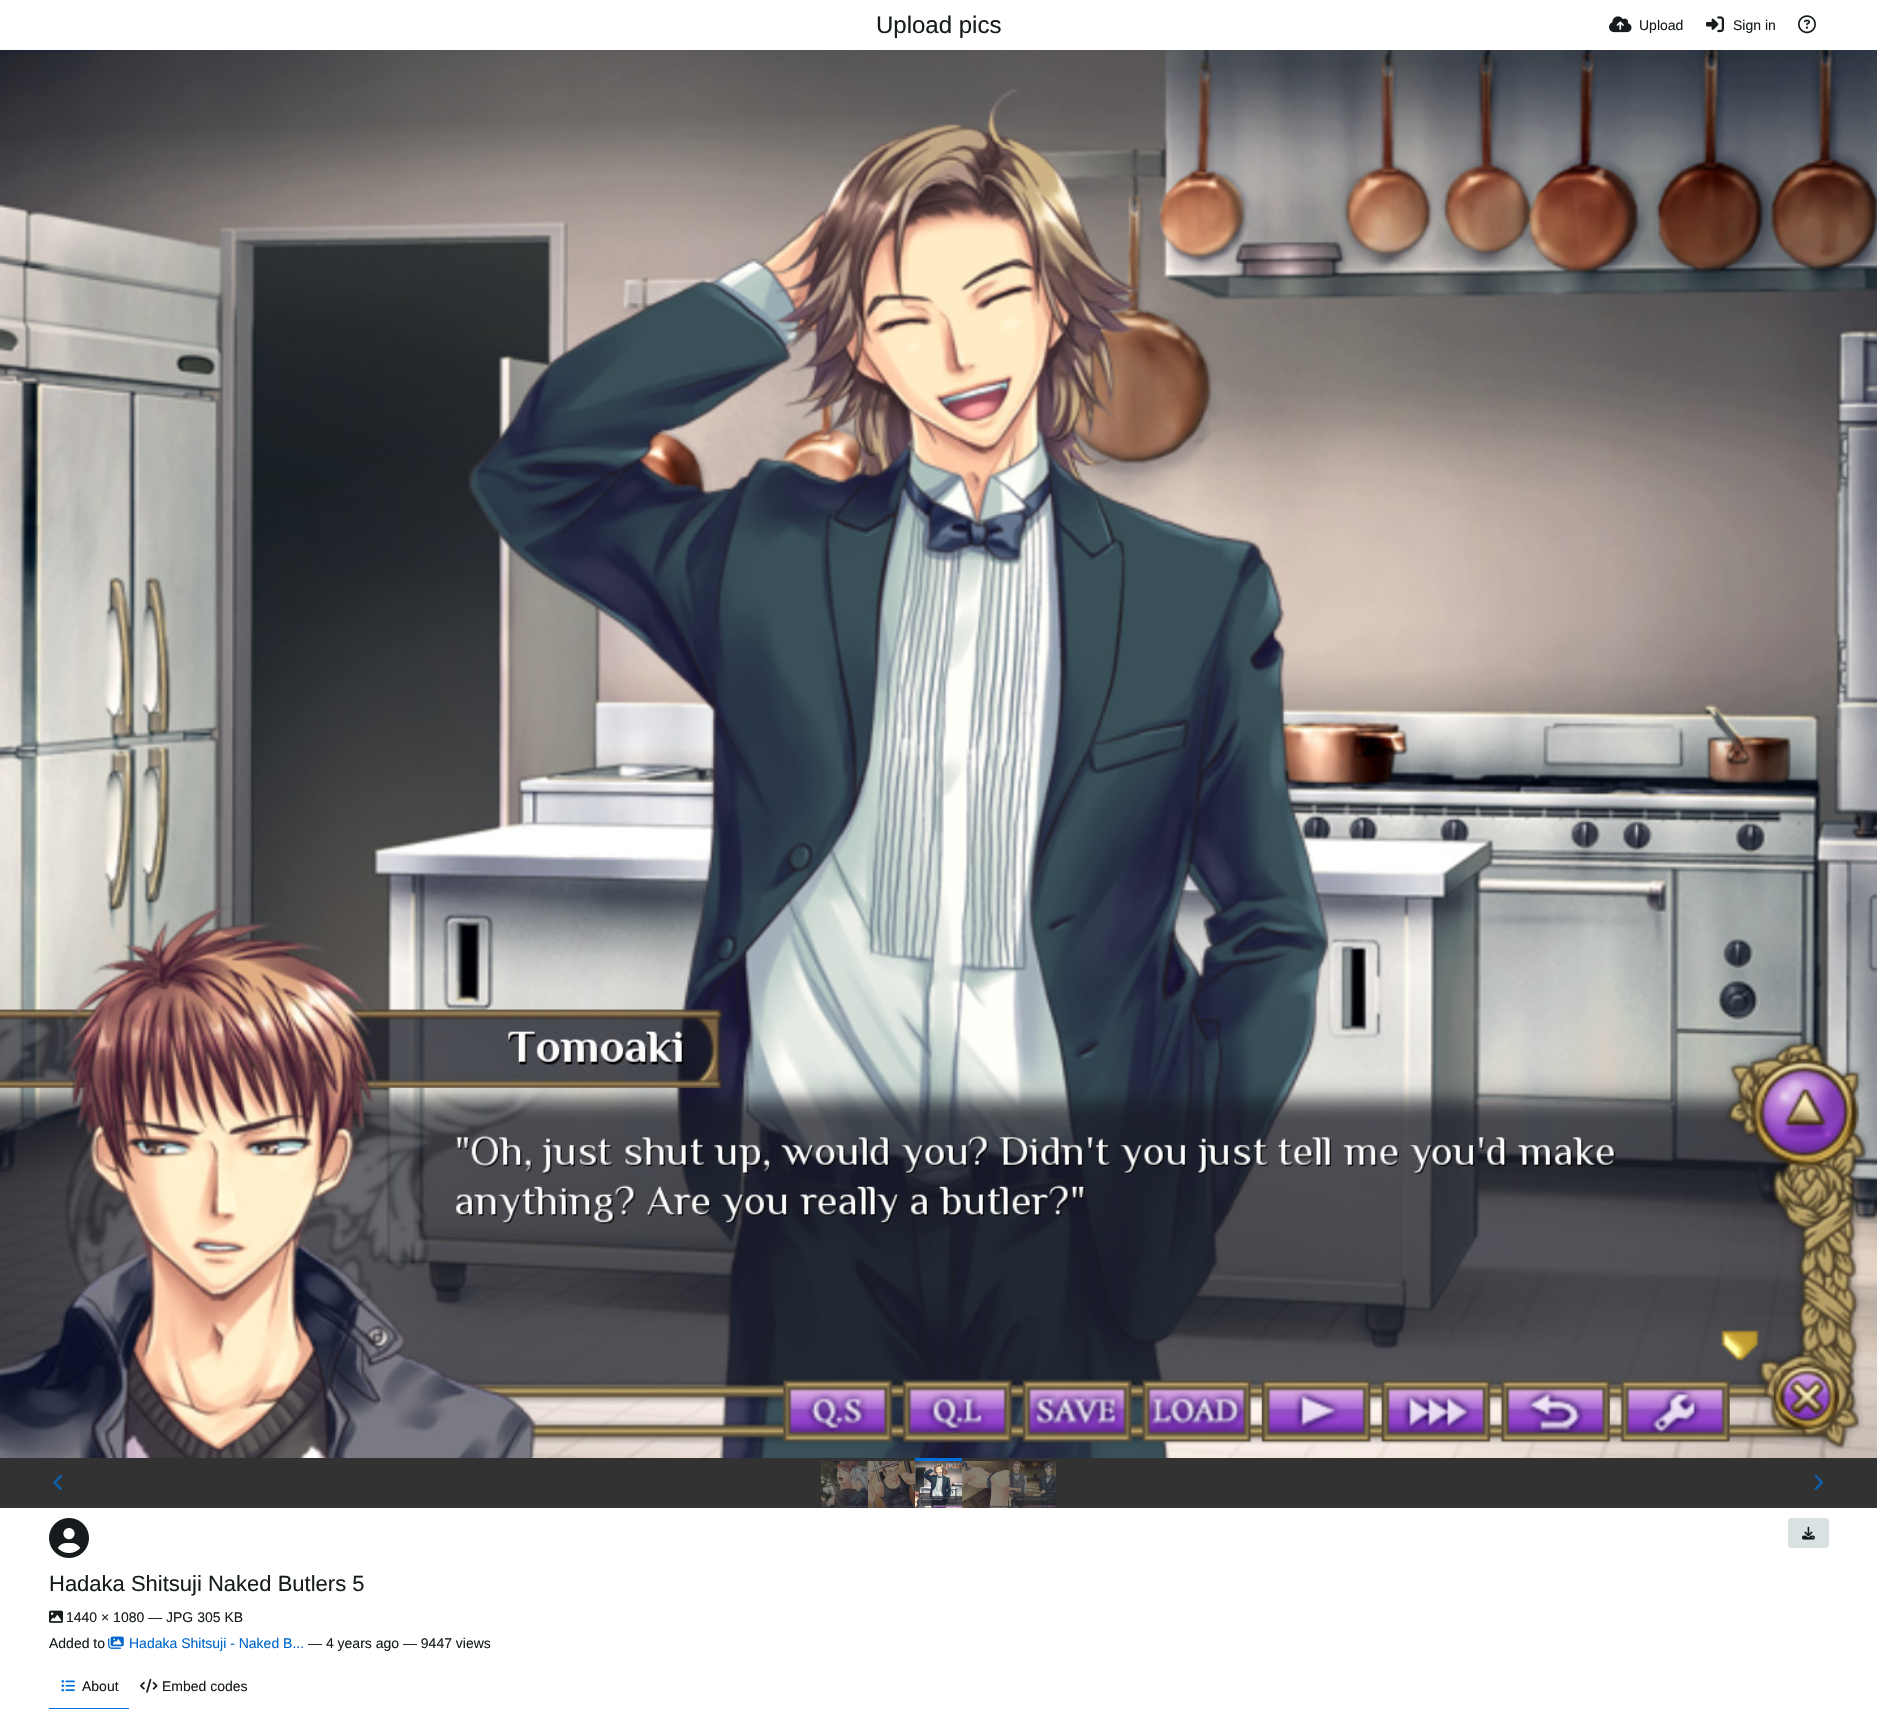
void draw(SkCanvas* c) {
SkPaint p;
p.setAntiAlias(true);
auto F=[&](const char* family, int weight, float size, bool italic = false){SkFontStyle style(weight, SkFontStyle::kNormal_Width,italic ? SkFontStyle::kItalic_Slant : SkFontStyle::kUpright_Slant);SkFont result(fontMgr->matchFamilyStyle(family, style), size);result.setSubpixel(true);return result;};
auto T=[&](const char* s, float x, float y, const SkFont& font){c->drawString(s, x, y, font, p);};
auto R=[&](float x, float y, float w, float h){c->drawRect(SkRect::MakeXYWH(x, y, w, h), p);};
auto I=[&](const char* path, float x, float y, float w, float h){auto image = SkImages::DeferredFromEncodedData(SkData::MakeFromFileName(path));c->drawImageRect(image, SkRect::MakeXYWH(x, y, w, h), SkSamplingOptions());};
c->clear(0xffffffff);
auto f1 = F("Liberation Sans",400,24);
p.setColor(0xff161c1d);
T("Upload pics",876,33,f1);
I("1.png",1609,16,23,17);
auto f2 = F("Liberation Sans",400,14);
T("Upload",1639,30,f2);
I("2.png",1706,16,18,17);
T("Sign in",1733,30,f2);
I("3.png",1798,15,18,19);
I("4.png",0,50,1877,1408);
p.setColor(0xff323232);
R(0,1458,1877,50);
I("5.png",821,1461,47,47);
I("6.png",868,1461,47,47);
p.setColor(0xff006edb);
R(915,1458,47,3);
I("7.png",915,1461,47,47);
I("8.png",962,1461,47,47);
I("9.png",1009,1461,47,47);
I("10.png",53,1475,9,15);
I("11.png",1814,1475,10,15);
I("12.png",49,1518,40,40);
p.setColor(0xffd9e1e2);
c->drawRoundRect(SkRect::MakeXYWH(1788.5,1518.5,40,29),2.5,2.5,p);
p.setStroke(true);
p.setStrokeWidth(1);
c->drawRoundRect(SkRect::MakeXYWH(1788.5,1518.5,40,29),2.5,2.5,p);
I("13.png",1802,1526,13,14);
auto f3 = F("Liberation Sans",400,22);
p.setStroke(false);
p.setColor(0xff161c1d);
T("Hadaka Shitsuji Naked Butlers 5",49,1591,f3);
I("14.png",49,1610,14,13);
T("1440 × 1080 — JPG 305 KB",66,1622,f2);
T("Added to",49,1648,f2);
I("15.png",108,1636,16,13);
p.setColor(0xff0066cc);
T("Hadaka Shitsuji - Naked B...",129,1648,f2);
p.setColor(0xff161c1d);
T("— 4 years ago — 9447 views",308,1648,f2);
p.setColor(0xff006edb);
R(49,1708,80,1);
I("16.png",61,1680,14,12);
p.setColor(0xff161c1d);
T("About",82,1691,f2);
I("17.png",140,1678,18,15);
T("Embed codes",162,1691,f2);
}
